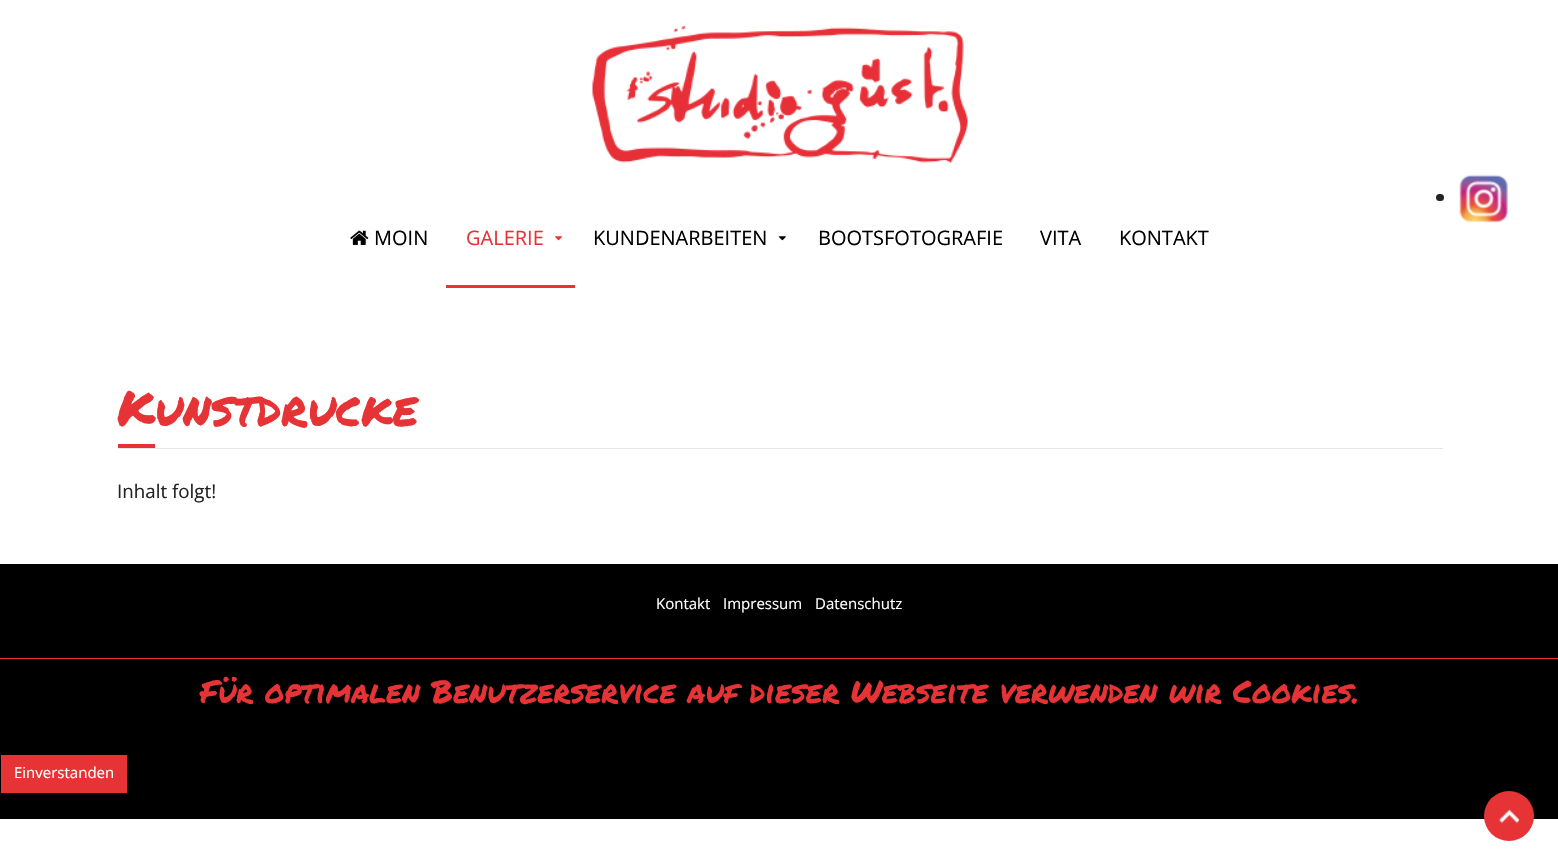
void draw(SkCanvas* c) {
SkPaint p;
p.setAntiAlias(true);
auto F=[&](const char* family, int weight, float size, bool italic = false){SkFontStyle style(weight, SkFontStyle::kNormal_Width,italic ? SkFontStyle::kItalic_Slant : SkFontStyle::kUpright_Slant);SkFont result(fontMgr->matchFamilyStyle(family, style), size);result.setSubpixel(true);return result;};
auto T=[&](const char* s, float x, float y, const SkFont& font){c->drawString(s, x, y, font, p);};
auto R=[&](float x, float y, float w, float h){c->drawRect(SkRect::MakeXYWH(x, y, w, h), p);};
auto Q=[&](float x, float y, float w, float h, float radius){c->drawRoundRect(SkRect::MakeXYWH(x, y, w, h), radius, radius, p);};
auto I=[&](const char* path, float x, float y, float w, float h){auto image = SkImages::DeferredFromEncodedData(SkData::MakeFromFileName(path));c->drawImageRect(image, SkRect::MakeXYWH(x, y, w, h), SkSamplingOptions());};
c->clear(0xffffffff);
I("1.png",592,26,376,137);
p.setColor(0xff222222);
Q(1436,194,8,7,3.5);
I("2.png",1459,174,49,49);
I("3.png",350,230,19,15);
auto f1 = F("Open Sans",400,20);
p.setColor(0xff000000);
T("MOIN",374,245,f1);
p.setColor(0xffe63336);
R(446,285,129,3);
T("GALERIE",466,245,f1);
I("4.png",555,236,8,5);
p.setColor(0xff000000);
T("KUNDENARBEITEN",593,245,f1);
I("5.png",778,236,8,5);
T("BOOTSFOTOGRAFIE",818,245,f1);
T("VITA",1040,245,f1);
T("KONTAKT",1119,245,f1);
p.setColor(0xffe6e6e6);
R(118,448,1325,1);
auto f2 = F("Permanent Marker",400,48.75);
p.setColor(0xffe63336);
T("Kunstdrucke",117,426,f2);
R(118,444,37,4);
auto f3 = F("Open Sans",400,18.75);
p.setColor(0xff222222);
T("Inhalt folgt!",117,498,f3);
p.setColor(0xff000000);
R(0,564,1558,255);
auto f4 = F("Open Sans",400,15);
p.setColor(0xffffffff);
T("Kontakt",656,609,f4);
T("Impressum",723,609,f4);
T("Datenschutz",815,609,f4);
p.setColor(0xffe63336);
R(0,658,1558,1);
auto f5 = F("Permanent Marker",400,31.25);
T("Für optimalen Benutzerservice auf dieser Webseite verwenden wir Cookies.",200,703,f5);
R(1,755,126,38);
p.setColor(0xffffffff);
T("Einverstanden",14,778,f4);
p.setColor(0xffe63336);
c->drawCircle(1509,816,25,p);
I("6.png",1499,809,20,15);
}
